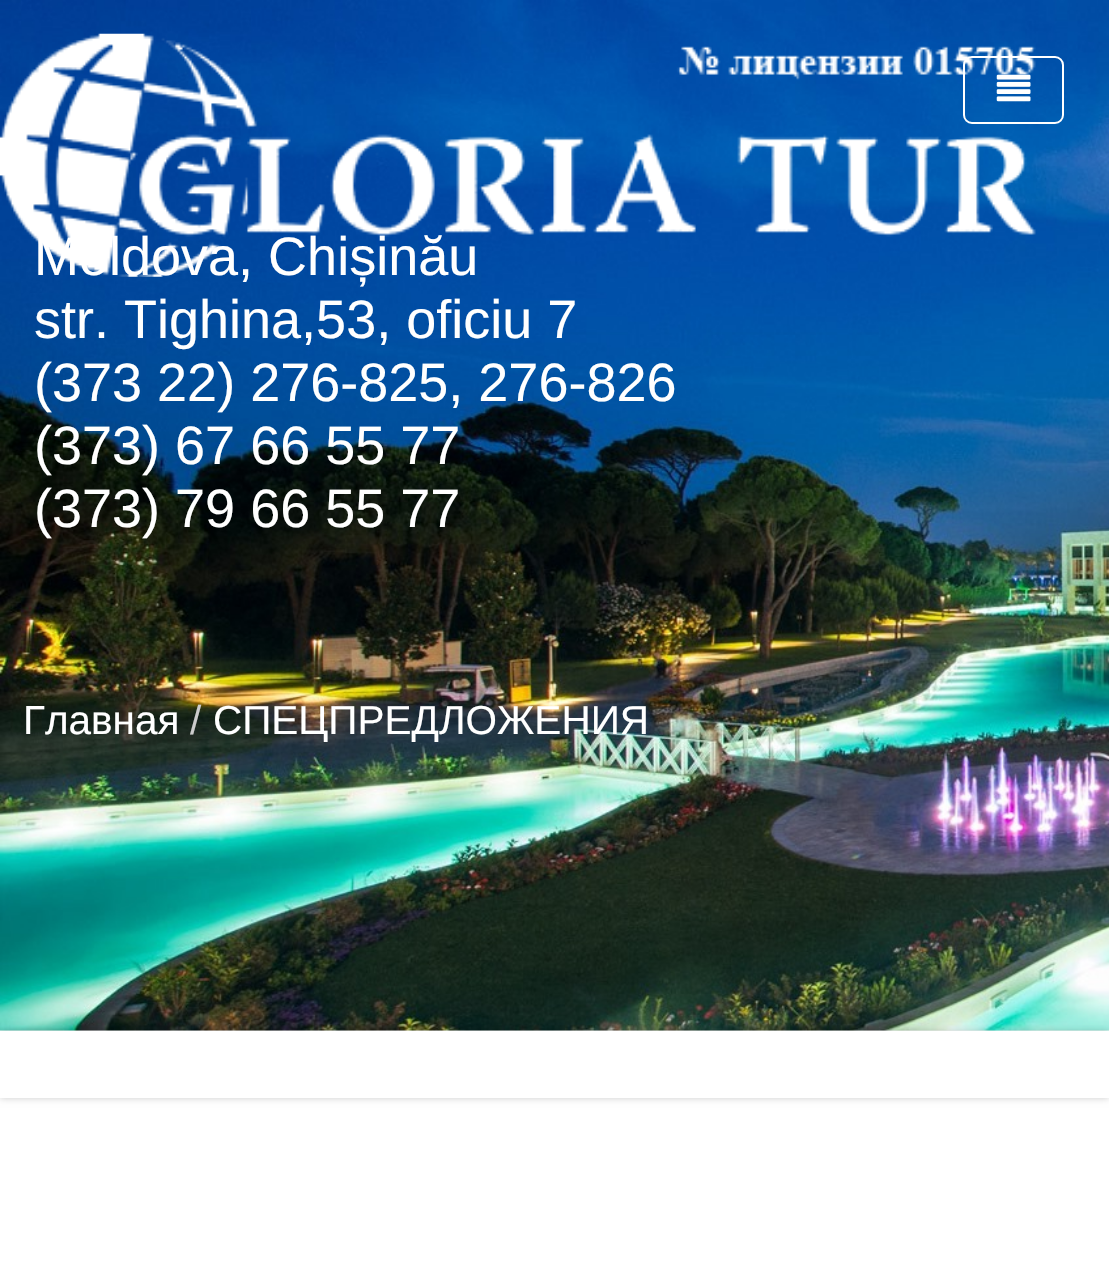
void draw(SkCanvas* c) {
SkPaint p;
p.setAntiAlias(true);
auto F=[&](const char* family, int weight, float size, bool italic = false){SkFontStyle style(weight, SkFontStyle::kNormal_Width,italic ? SkFontStyle::kItalic_Slant : SkFontStyle::kUpright_Slant);SkFont result(fontMgr->matchFamilyStyle(family, style), size);result.setSubpixel(true);return result;};
auto T=[&](const char* s, float x, float y, const SkFont& font){c->drawString(s, x, y, font, p);};
auto I=[&](const char* path, float x, float y, float w, float h){auto image = SkImages::DeferredFromEncodedData(SkData::MakeFromFileName(path));c->drawImageRect(image, SkRect::MakeXYWH(x, y, w, h), SkSamplingOptions());};
auto P=[&](const char* data, bool evenOdd = false){SkPath result = *SkParsePath::FromSVGString(data);if (evenOdd) result.setFillType(SkPathFillType::kEvenOdd);return result;};
c->clear(0xffffffff);
I("3.png",0,0,1109,1031);
auto f1 = F("Liberation Sans",400,54);
p.setColor(0xffffffff);
T("Мoldova, Chișinău",34,275,f1);
I("1.png",0,33,1036,244);
p.setStroke(true);
p.setStrokeWidth(2);
c->drawRoundRect(SkRect::MakeXYWH(964,57,99,66),8,8,p);
I("2.png",996,74,35,28);
p.setStroke(false);
T("str. Tighina,53, oficiu 7",34,338,f1);
T("(373 22) 276-825, 276-826",34,401,f1);
T("(373) 67 66 55 77",34,464,f1);
T("(373) 79 66 55 77",34,527,f1);
auto f2 = F("Liberation Sans",400,40.5);
T("Главная",23,734,f2);
p.setColor(0xffcccccc);
T("/",190,734,f2);
p.setColor(0xffffffff);
T("СПЕЦПРЕДЛОЖЕНИЯ",213,734,f2);
c->save();
c->clipPath(P("M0 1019h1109v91h-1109zm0 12h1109v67h-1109z",true),true);
p.setColor(0x33000000);
p.setMaskFilter(SkMaskFilter::MakeBlur(kNormal_SkBlurStyle, 3.5));
c->drawRect(SkRect::MakeXYWH(0,1031,1109,67),p);
p.setMaskFilter(nullptr);
c->restore();
}
